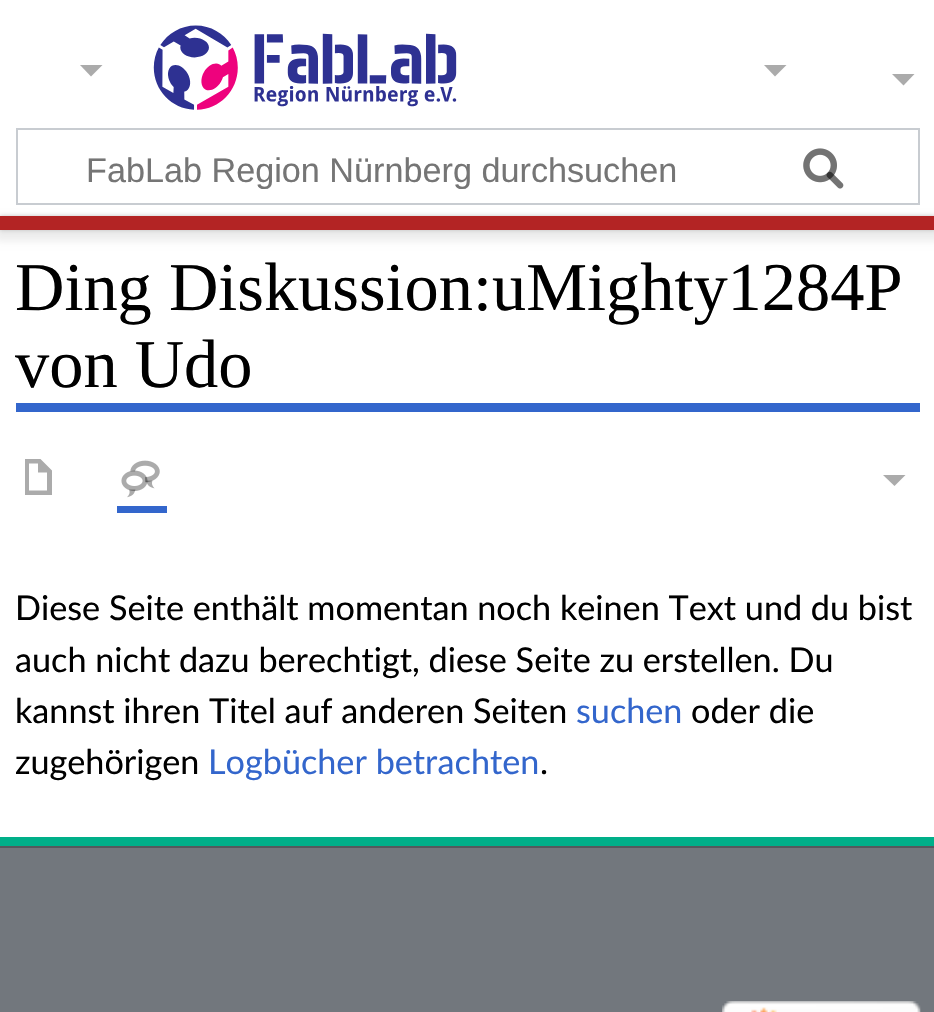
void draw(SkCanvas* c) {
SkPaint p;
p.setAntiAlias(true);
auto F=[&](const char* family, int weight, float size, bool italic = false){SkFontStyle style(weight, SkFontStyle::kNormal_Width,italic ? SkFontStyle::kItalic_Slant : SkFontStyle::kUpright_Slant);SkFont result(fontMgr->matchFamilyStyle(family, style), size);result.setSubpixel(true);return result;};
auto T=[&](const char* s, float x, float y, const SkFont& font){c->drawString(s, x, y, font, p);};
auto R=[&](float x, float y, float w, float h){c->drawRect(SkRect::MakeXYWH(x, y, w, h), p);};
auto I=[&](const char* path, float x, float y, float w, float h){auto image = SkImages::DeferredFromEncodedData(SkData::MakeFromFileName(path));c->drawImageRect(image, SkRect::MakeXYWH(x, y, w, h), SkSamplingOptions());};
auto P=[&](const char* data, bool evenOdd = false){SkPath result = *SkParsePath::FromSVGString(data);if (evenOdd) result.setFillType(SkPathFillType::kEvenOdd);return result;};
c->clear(0xff72777d);
p.setColor(0xffffffff);
R(0,0,934,216);
I("1.png",153,25,304,85);
p.setColor(0xffababab);
c->drawPath(P("M914.5 74l-11 11.5l-11.5-11.5z"),p);
p.setStroke(true);
p.setStrokeWidth(2);
p.setColor(0xffc8ccd1);
c->drawRect(SkRect::MakeXYWH(17,129,902,75),p);
I("2.png",803,148,41,41);
c->save();
c->clipRect(SkRect::MakeXYWH(86,151,670,38));
auto f1 = F("Liberation Sans",400,34.2);
p.setStroke(false);
p.setColor(0xff757575);
T("FabLab Region Nürnberg durchsuchen",86,182,f1);
c->restore();
I("3.png",803,148,41,41);
p.setColor(0xffffffff);
R(0,230,934,607);
p.setColor(0x33000000);
p.setMaskFilter(SkMaskFilter::MakeBlur(kNormal_SkBlurStyle, 2));
c->drawRect(SkRect::MakeXYWH(0,216,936,14),p);
p.setMaskFilter(nullptr);
p.setColor(0x12000000);
p.setMaskFilter(SkMaskFilter::MakeBlur(kNormal_SkBlurStyle, 3.5));
c->drawRect(SkRect::MakeXYWH(-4,218,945,23),p);
p.setMaskFilter(nullptr);
p.setColor(0xffb32424);
R(0,216,934,14);
p.setColor(0xff00af89);
R(0,837,934,9);
p.setColor(0xffababab);
c->drawPath(P("M102.5 65l-11.5 11.5l-11-11.5z"),p);
c->drawPath(P("M786.5 65l-11.5 11.5l-11-11.5z"),p);
p.setColor(0xff3366cc);
R(16,403,904,9);
auto f2 = F("Liberation Serif",400,68.4);
p.setColor(0xff000000);
T("Ding Diskussion:uMighty1284P",15,310,f2);
T("von Udo",15,387,f2);
p.setColor(0xffababab);
c->drawPath(P("M25 459v36h27v-24.5l-11.5-11.5zm4 4.5h9v9h9v18h-18z"),p);
p.setColor(0xff3366cc);
R(117,506,50,7);
I("4.png",121,460,39,38);
p.setColor(0xffababab);
c->drawPath(P("M905.5 475l-11 11l-11.5-11z"),p);
auto f3 = F("Lato",400,34.2);
p.setColor(0xff000000);
T("Diese Seite enthält momentan noch keinen Text und du bist",15,620,f3);
T("auch nicht dazu berechtigt, diese Seite zu erstellen. Du",15,672,f3);
T("kannst ihren Titel auf anderen Seiten",15,723,f3);
p.setColor(0xff3366cc);
T("suchen",576,723,f3);
p.setColor(0xff000000);
T("oder die",691,723,f3);
T("zugehörigen",15,774,f3);
p.setColor(0xff3366cc);
T("Logbücher betrachten",208,774,f3);
p.setColor(0xff000000);
T(".",540,774,f3);
p.setColor(0xff54595d);
R(0,846,934,2);
I("5.png",722,1001,199,11);
}
